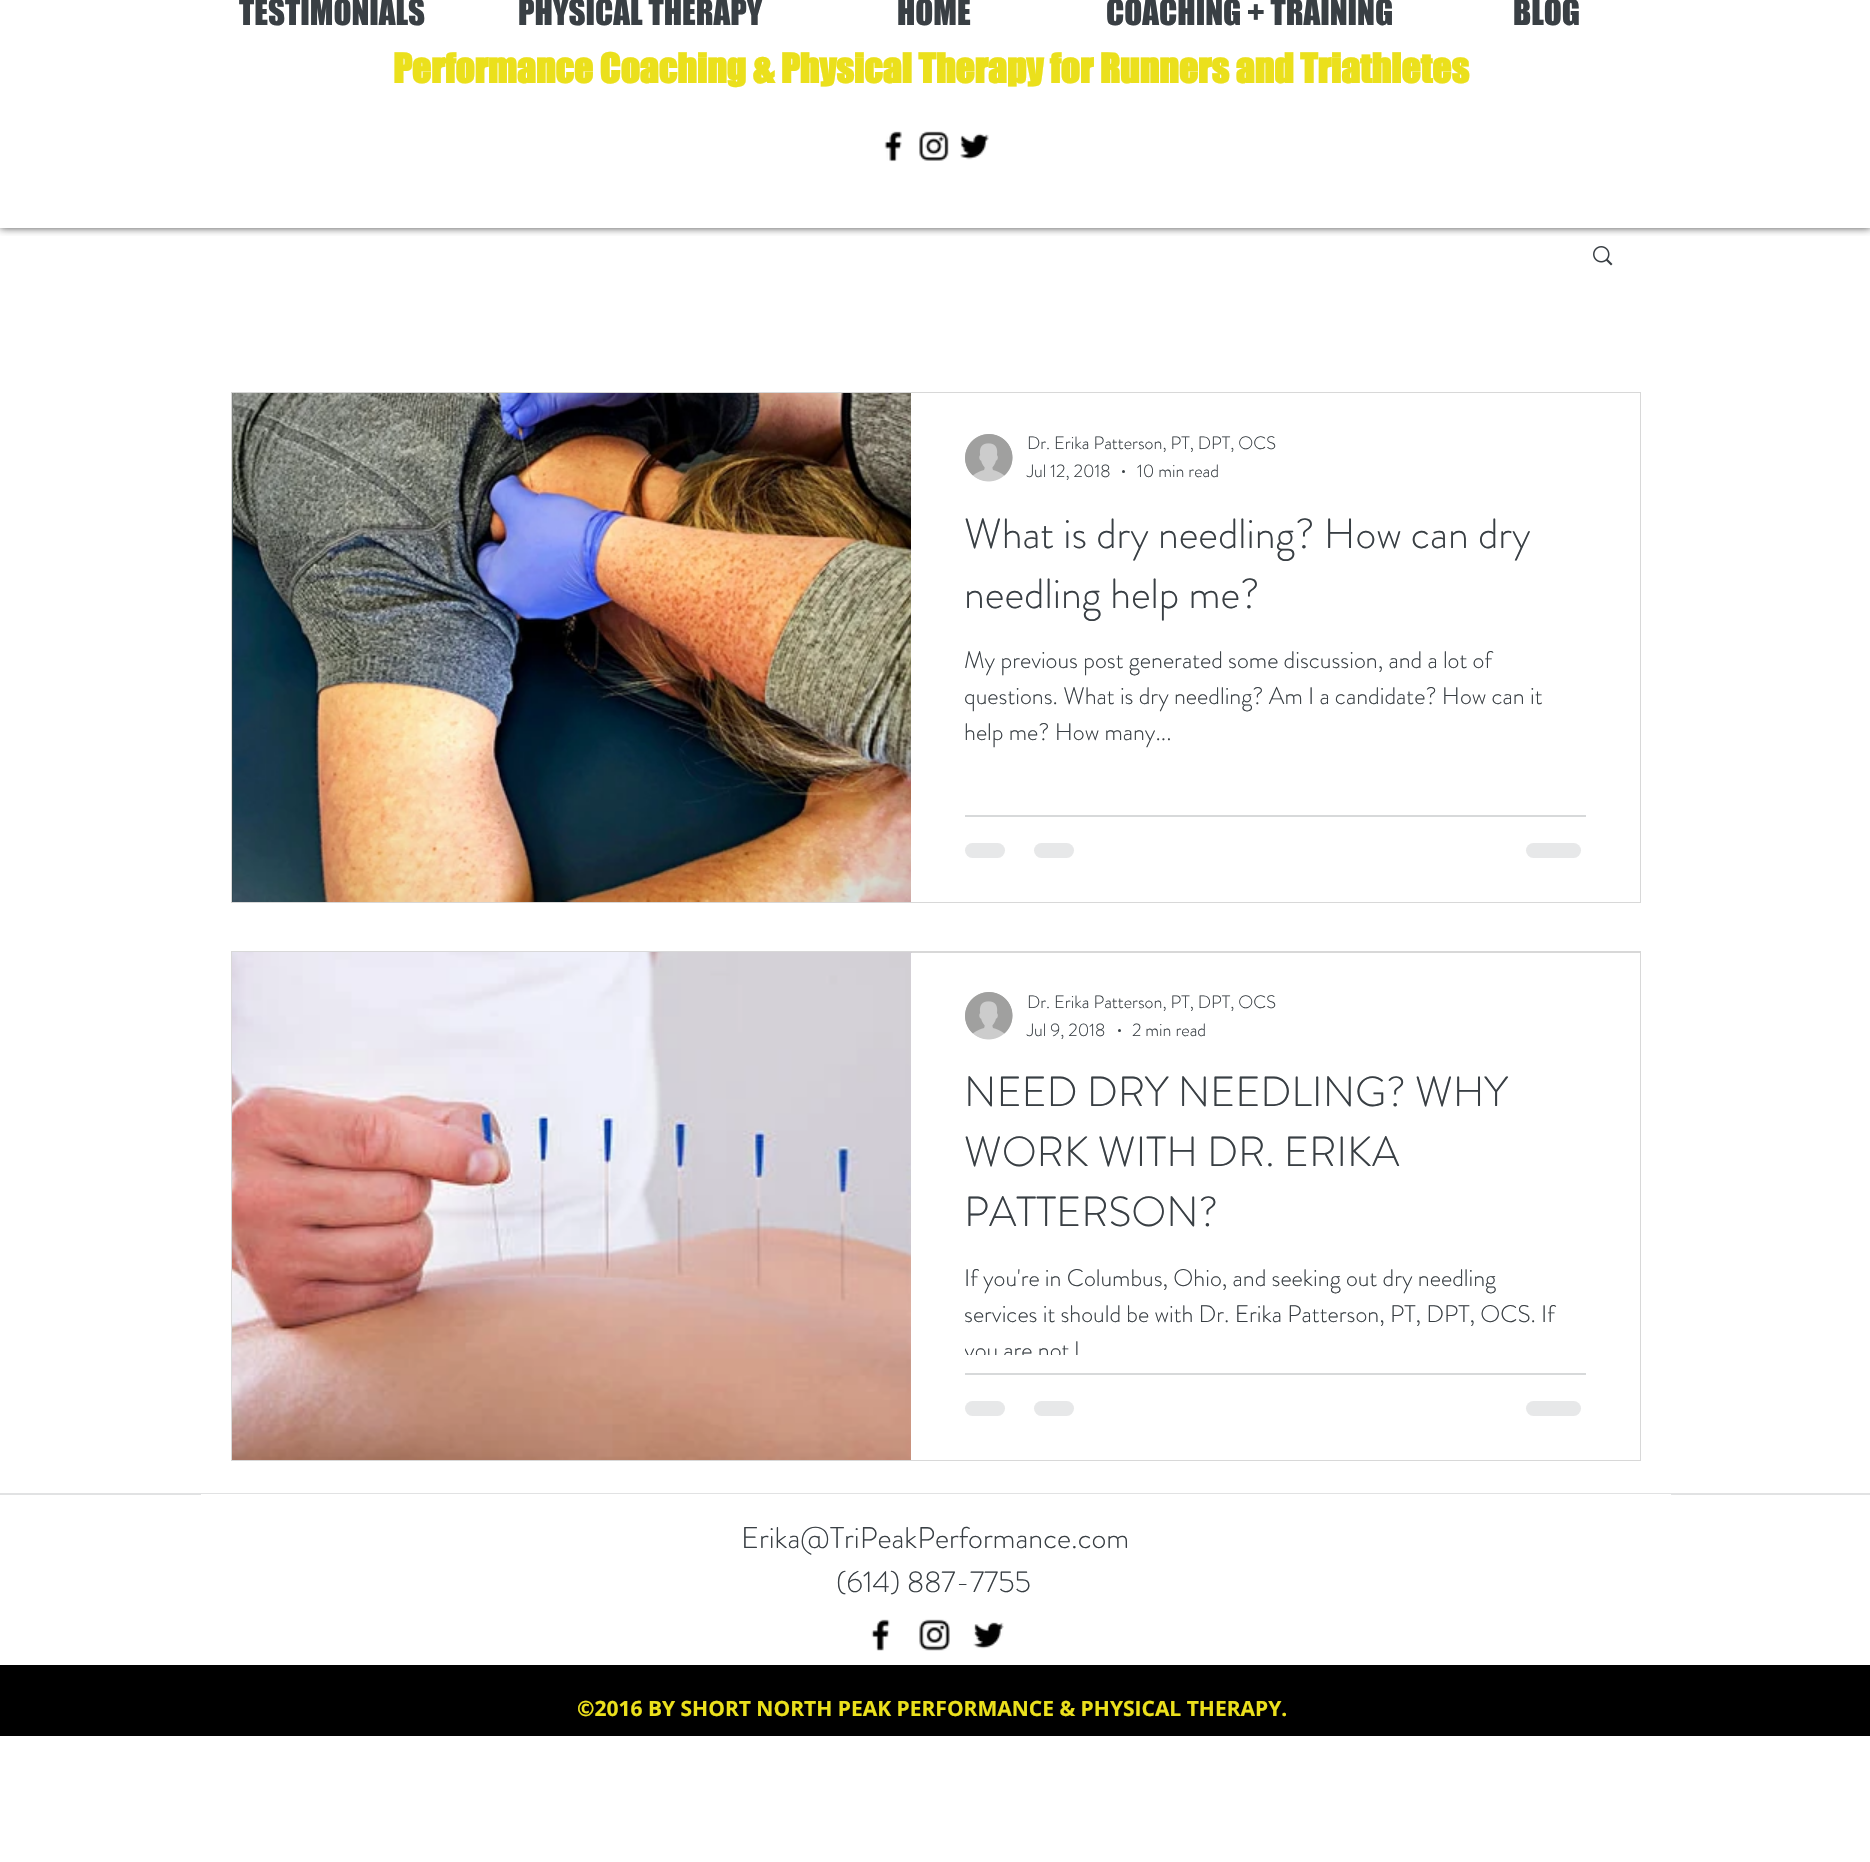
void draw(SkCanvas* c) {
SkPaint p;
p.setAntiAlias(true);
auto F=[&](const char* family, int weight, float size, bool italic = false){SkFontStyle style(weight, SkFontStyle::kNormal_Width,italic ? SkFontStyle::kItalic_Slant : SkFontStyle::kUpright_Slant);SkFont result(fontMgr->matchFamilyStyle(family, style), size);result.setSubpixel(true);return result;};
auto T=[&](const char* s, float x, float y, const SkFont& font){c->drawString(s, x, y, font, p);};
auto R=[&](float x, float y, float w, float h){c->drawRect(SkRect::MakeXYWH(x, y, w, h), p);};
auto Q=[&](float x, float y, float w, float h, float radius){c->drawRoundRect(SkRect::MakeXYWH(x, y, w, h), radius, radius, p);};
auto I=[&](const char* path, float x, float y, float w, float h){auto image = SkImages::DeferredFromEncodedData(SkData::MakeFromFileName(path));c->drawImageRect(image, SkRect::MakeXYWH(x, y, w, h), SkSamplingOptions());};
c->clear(0xffffffff);
c->save();
c->clipRect(SkRect::MakeXYWH(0,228,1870,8));
p.setColor(0xb3000000);
p.setMaskFilter(SkMaskFilter::MakeBlur(kNormal_SkBlurStyle, 4));
c->drawRect(SkRect::MakeXYWH(0,0,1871,228),p);
p.setMaskFilter(nullptr);
c->restore();
auto f1 = F("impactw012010",400,33);
p.setColor(0xff393f44);
T("TESTIMONIALS",239,25,f1);
T("PHYSICAL THERAPY",518,25,f1);
T("HOME",897,25,f1);
T("COACHING + TRAINING",1106,25,f1);
T("BLOG",1513,25,f1);
auto f2 = F("impactw012010",700,37.5);
p.setColor(0xffebe01c);
T("Performance Coaching & Physical Therapy for Runners and Triathletes",393,83,f2);
I("1.png",884,131,18,31);
I("2.png",919,131,30,30);
I("3.png",960,133,29,27);
I("4.png",1593,246,20,20);
p.setStroke(true);
p.setStrokeWidth(2);
p.setColor(0xffd8d8d8);
c->drawRect(SkRect::MakeXYWH(232,393,1408,509),p);
I("5.png",232,393,1,509);
I("6.png",233,393,678,509);
p.setStroke(false);
p.setColor(0xffffffff);
R(911,393,729,509);
I("7.png",965,434,48,48);
auto f3 = F("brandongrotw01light",300,18);
p.setColor(0xff393f44);
T("Dr. Erika Patterson, PT, DPT, OCS",1027,449,f3);
T("Jul 12, 2018",1027,477,f3);
c->drawCircle(1123.5,471.5,1.5,p);
T("10 min read",1137,477,f3);
auto f4 = F("brandongrotw01light",300,42);
T("What is dry needling? How can dry",964,548,f4);
T("needling help me?",964,608,f4);
auto f5 = F("brandongrotw01light",300,24);
T("My previous post generated some discussion, and a lot of",964,668,f5);
T("questions. What is dry needling? Am I a candidate? How can it",964,704,f5);
T("help me? How many...",964,740,f5);
p.setColor(0xffd7d9da);
R(965,815,621,2);
p.setColor(0xffe7e8e9);
Q(965,843,40,15,7.5);
Q(1034,843,40,15,7.5);
Q(1526,843,55,15,7.5);
p.setStroke(true);
p.setColor(0xffd8d8d8);
c->drawRect(SkRect::MakeXYWH(232,952,1408,508),p);
I("9.png",909,952,3,508);
I("8.png",232,952,680,508);
p.setStroke(false);
p.setColor(0xffffffff);
R(911,953,729,507);
I("7.png",965,992,48,48);
p.setColor(0xff393f44);
T("Dr. Erika Patterson, PT, DPT, OCS",1027,1008,f3);
T("Jul 9, 2018",1027,1036,f3);
c->drawCircle(1119.5,1030.5,1.5,p);
T("2 min read",1132,1036,f3);
T("NEED DRY NEEDLING? WHY",964,1106,f4);
T("WORK WITH DR. ERIKA",964,1166,f4);
T("PATTERSON?",964,1226,f4);
T("If you're in Columbus, Ohio, and seeking out dry needling",964,1286,f5);
T("services it should be with Dr. Erika Patterson, PT, DPT, OCS. If",964,1322,f5);
c->save();
c->clipRect(SkRect::MakeXYWH(965,1262,621,93));
T("you are not l",964,1358,f5);
c->restore();
p.setColor(0xffd7d9da);
R(965,1373,621,2);
p.setColor(0xffe7e8e9);
Q(965,1401,40,15,7.5);
Q(1034,1401,40,15,7.5);
Q(1526,1401,55,15,7.5);
p.setColor(0xffe1e2e3);
R(0,1493,1870,2);
p.setColor(0xffffffff);
R(201,1494,1470,1);
auto f6 = F("brandongrotw01light",300,30);
p.setColor(0xff393f44);
T("Erika@TriPeakPerformance.com",741,1548,f6);
T("(614) 887-7755",836,1592,f6);
I("10.png",871,1619,19,32);
I("11.png",919,1619,31,32);
I("12.png",973,1622,31,27);
p.setColor(0xff000000);
R(0,1665,1870,71);
auto f7 = F("Open Sans",700,21);
p.setColor(0xffebe01c);
T("©2016 BY SHORT NORTH PEAK PERFORMANCE & PHYSICAL THERAPY.",577,1716,f7);
}
